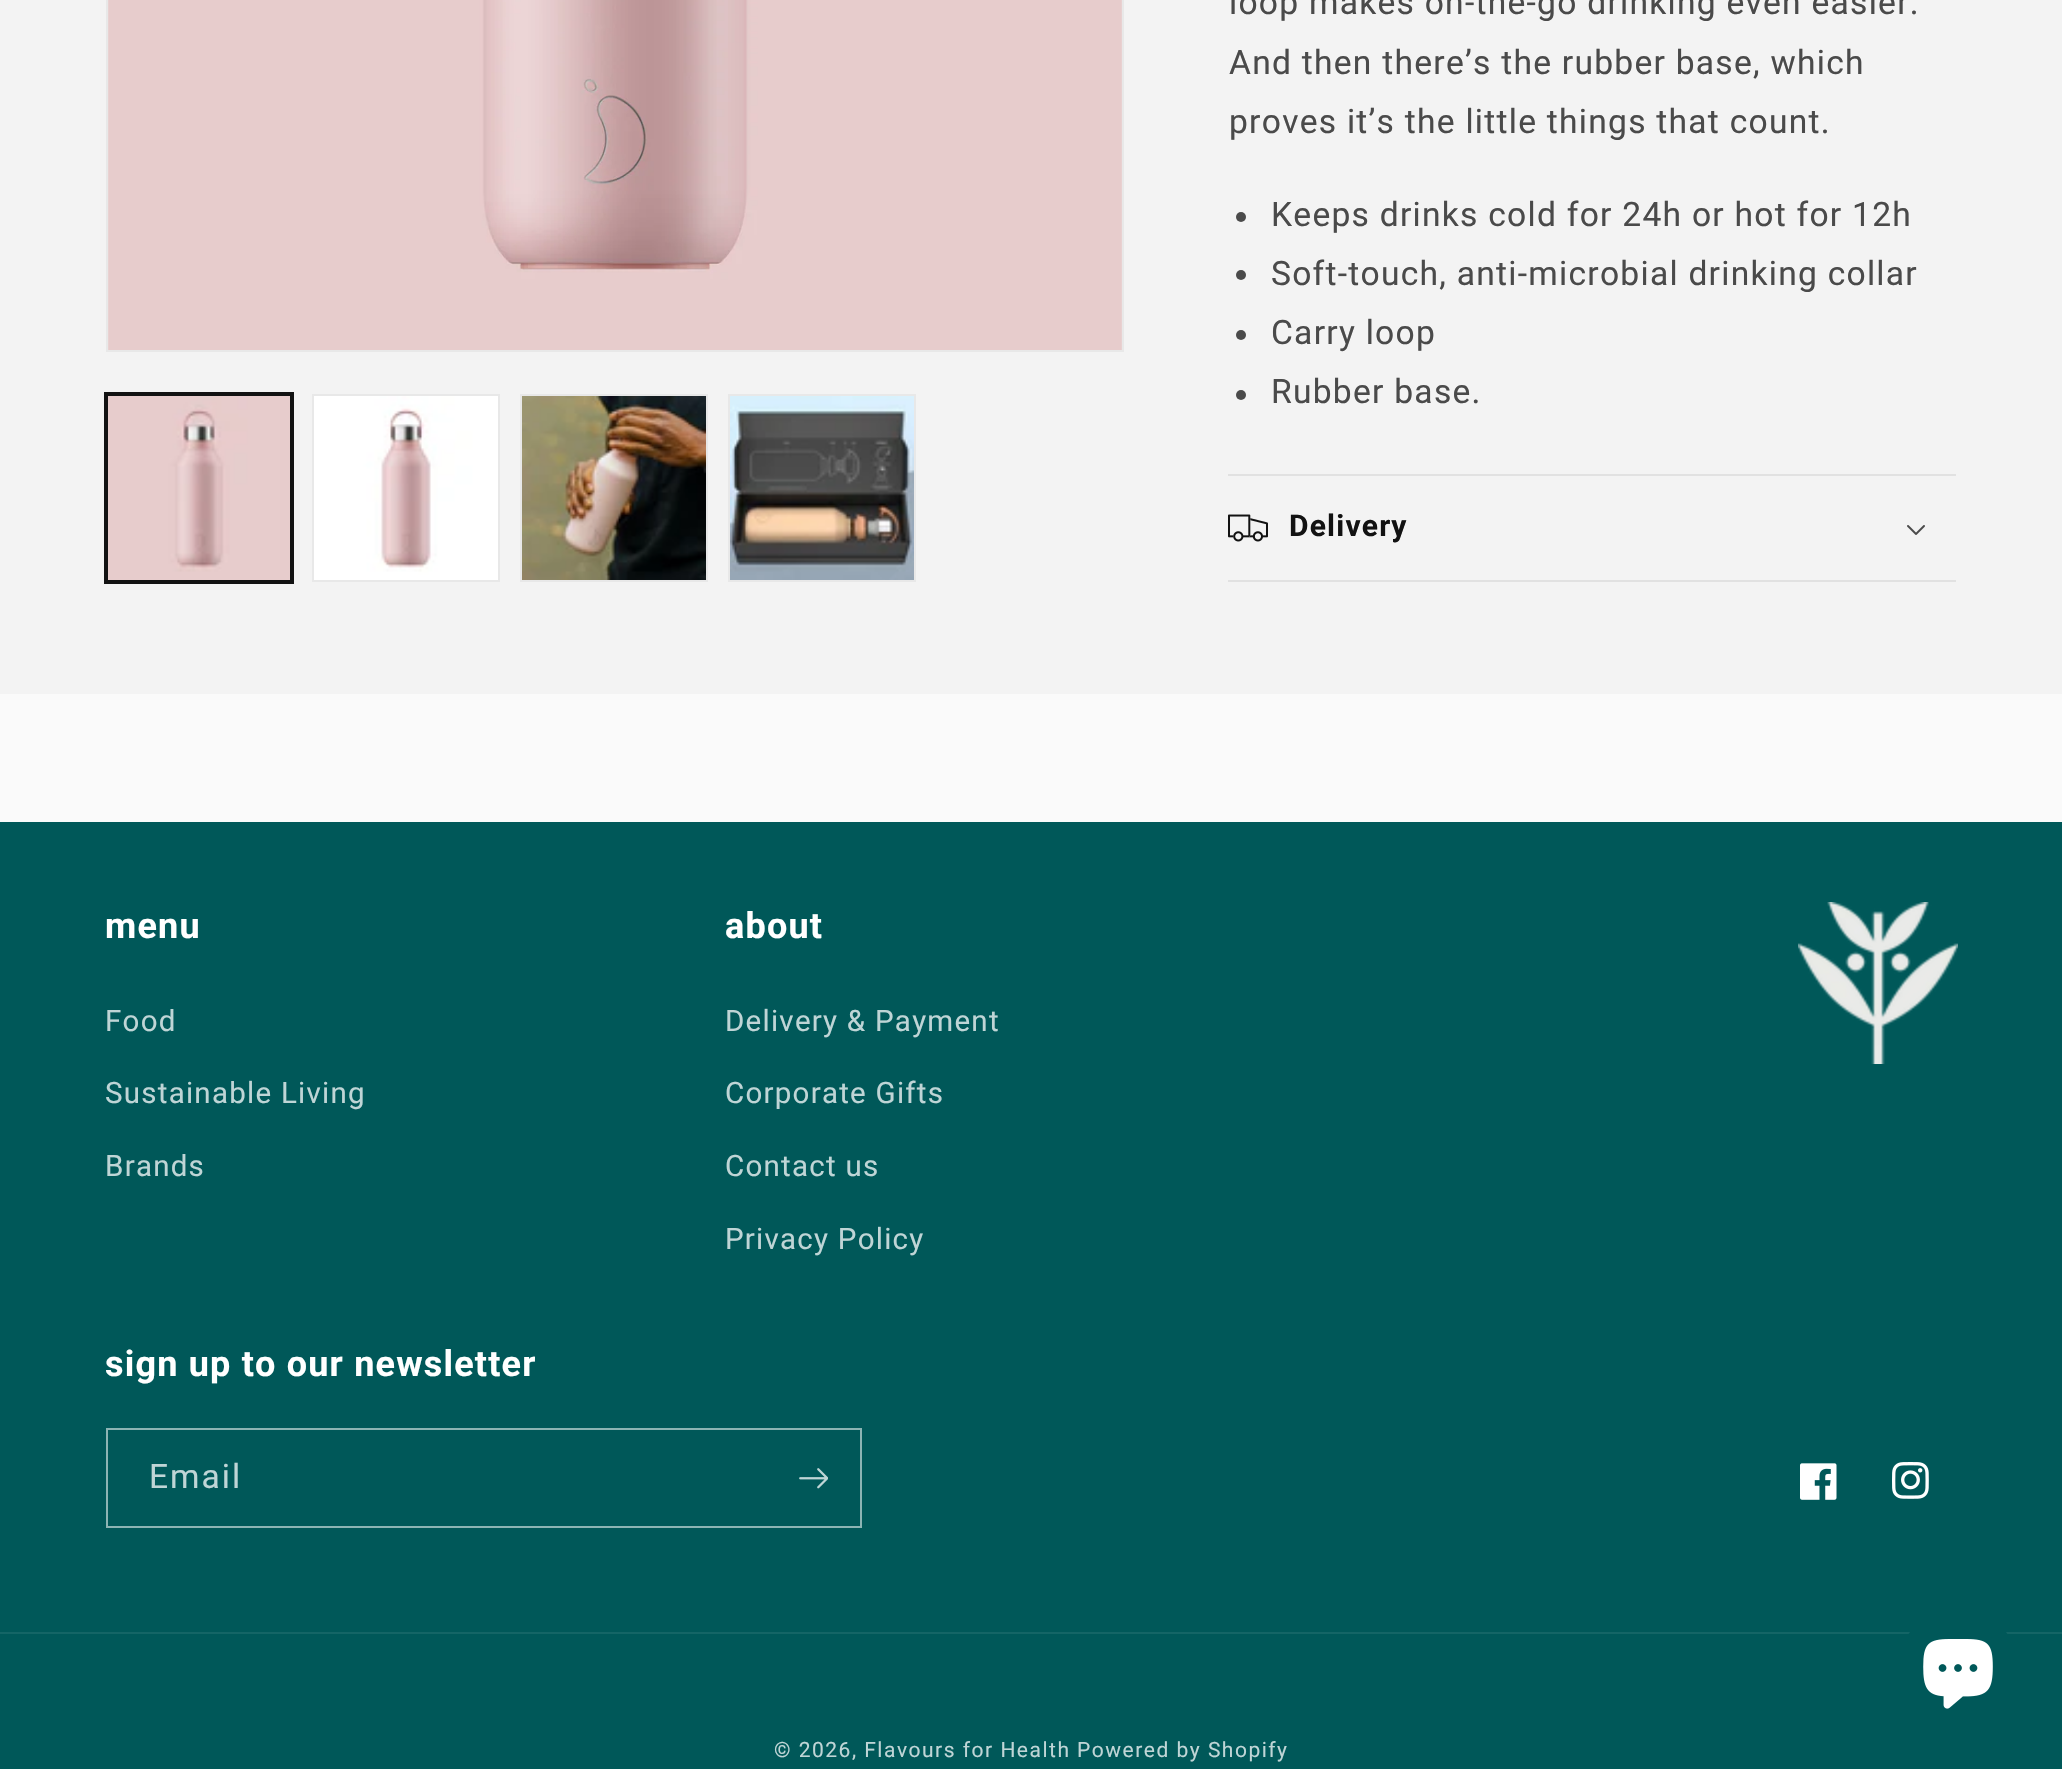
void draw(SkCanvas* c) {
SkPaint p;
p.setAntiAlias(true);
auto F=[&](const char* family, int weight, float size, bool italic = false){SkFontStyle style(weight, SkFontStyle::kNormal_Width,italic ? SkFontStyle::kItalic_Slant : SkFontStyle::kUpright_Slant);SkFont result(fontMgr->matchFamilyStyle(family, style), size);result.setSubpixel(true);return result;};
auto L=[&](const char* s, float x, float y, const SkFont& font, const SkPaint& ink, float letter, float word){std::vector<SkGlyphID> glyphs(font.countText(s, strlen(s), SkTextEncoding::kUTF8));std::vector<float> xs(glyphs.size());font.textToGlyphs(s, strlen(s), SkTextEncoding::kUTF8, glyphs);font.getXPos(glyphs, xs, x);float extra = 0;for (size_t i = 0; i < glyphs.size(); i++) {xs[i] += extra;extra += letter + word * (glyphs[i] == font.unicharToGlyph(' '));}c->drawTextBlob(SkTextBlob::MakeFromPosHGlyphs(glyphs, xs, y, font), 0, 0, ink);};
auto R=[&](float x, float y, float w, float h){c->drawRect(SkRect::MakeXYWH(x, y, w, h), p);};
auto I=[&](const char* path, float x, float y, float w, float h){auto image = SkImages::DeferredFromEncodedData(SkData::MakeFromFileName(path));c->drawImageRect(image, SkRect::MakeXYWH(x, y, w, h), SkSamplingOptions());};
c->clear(0xfff3f3f3);
p.setStroke(true);
p.setStrokeWidth(2);
p.setColor(0xffe8e8e8);
c->drawRect(SkRect::MakeXYWH(107,-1,1016,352),p);
I("1.png",108,0,1014,350);
p.setColor(0xff121212);
c->drawRect(SkRect::MakeXYWH(105,393,188,190),p);
c->drawRect(SkRect::MakeXYWH(107,395,184,186),p);
I("2.png",108,396,182,184);
p.setColor(0xffe8e8e8);
c->drawRect(SkRect::MakeXYWH(313,395,186,186),p);
I("3.png",314,396,184,184);
c->drawRect(SkRect::MakeXYWH(521,395,186,186),p);
I("4.png",522,396,184,184);
c->drawRect(SkRect::MakeXYWH(729,395,186,186),p);
I("5.png",730,396,184,184);
auto f1 = F("Roboto",400,33.6);
p.setStroke(false);
p.setColor(0xff4a4a4a);
L("loop makes on-the-go drinking even easier.",1229,14,f1,p,1.25,0);
L("And then there’s the rubber base, which",1229,74,f1,p,1.25,0);
L("proves it’s the little things that count.",1229,133,f1,p,1.25,0);
c->drawCircle(1241,217,5,p);
L("Keeps drinks cold for 24h or hot for 12h",1271,226,f1,p,1.25,0);
c->drawCircle(1241,275,5,p);
L("Soft-touch, anti-microbial drinking collar",1271,285,f1,p,1.25,0);
c->drawCircle(1241,335,5,p);
L("Carry loop",1271,344,f1,p,1.25,0);
c->drawCircle(1241,395,5,p);
L("Rubber base.",1271,403,f1,p,1.25,0);
p.setColor(0xffe1e1e1);
R(1228,474,728,2);
R(1228,580,728,2);
I("6.png",1228,514,40,28);
auto f2 = F("Roboto",700,30);
p.setColor(0xff121212);
L("Delivery",1289,536,f2,p,1.2,0);
I("7.png",1907,525,18,10);
p.setColor(0xfffafafa);
R(0,694,2062,128);
p.setColor(0xff005859);
R(0,822,2062,947);
auto f3 = F("Roboto",700,36);
p.setColor(0xffffffff);
L("menu",105,938,f3,p,1.2,0);
auto f4 = F("Roboto",400,29.5);
p.setColor(0xffbfd5d6);
L("Food",105,1031,f4,p,1.25,0);
L("Sustainable Living",105,1103,f4,p,1.25,0);
L("Brands",105,1176,f4,p,1.25,0);
p.setColor(0xffffffff);
L("about",725,938,f3,p,1.2,0);
p.setColor(0xffbfd5d6);
L("Delivery & Payment",725,1031,f4,p,1.25,0);
L("Corporate Gifts",725,1103,f4,p,1.25,0);
L("Contact us",725,1176,f4,p,1.25,0);
L("Privacy Policy",725,1249,f4,p,1.25,0);
I("8.png",1798,902,160,162);
p.setColor(0xffffffff);
L("sign up to our newsletter",105,1376,f3,p,1.2,0);
p.setStroke(true);
p.setColor(0xff8cb4b4);
c->drawRect(SkRect::MakeXYWH(107,1429,754,98),p);
p.setStroke(false);
p.setColor(0xffbfd5d6);
L("Email",149,1488,f1,p,2,0);
I("9.png",799,1468,29,21);
I("10.png",1800,1463,37,37);
I("11.png",1892,1462,37,37);
p.setColor(0xff146566);
R(0,1632,2062,2);
auto f5 = F("Roboto",400,21);
p.setColor(0xffbfd5d6);
L("© 2026, Flavours for Health",774,1757,f5,p,1.5,0);
L("Powered by Shopify",1077,1757,f5,p,1.5,0);
p.setColor(0xff005859);
c->drawCircle(1958,1668,60,p);
I("12.png",1923,1639,70,70);
}
